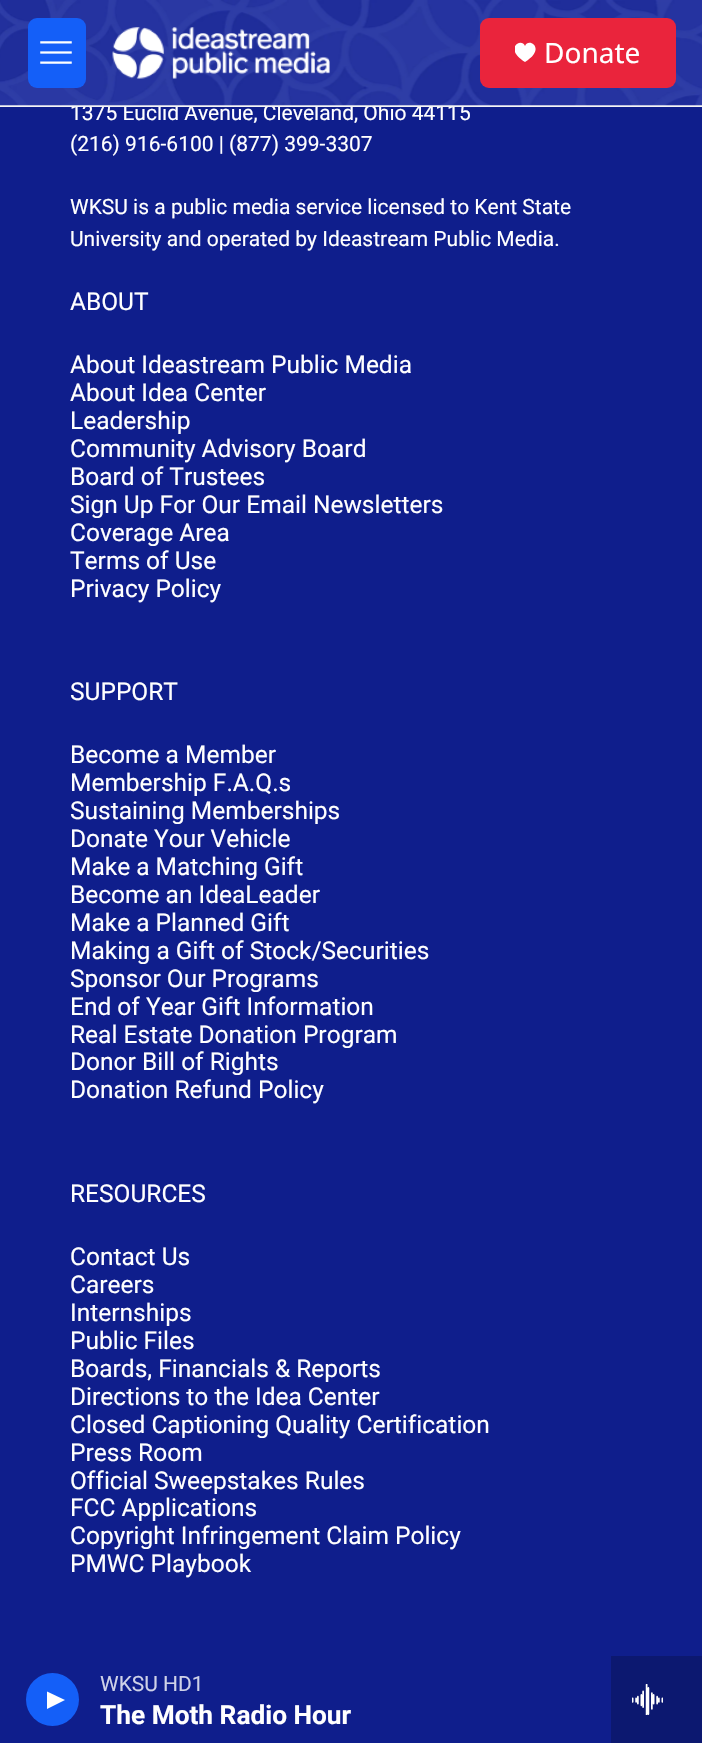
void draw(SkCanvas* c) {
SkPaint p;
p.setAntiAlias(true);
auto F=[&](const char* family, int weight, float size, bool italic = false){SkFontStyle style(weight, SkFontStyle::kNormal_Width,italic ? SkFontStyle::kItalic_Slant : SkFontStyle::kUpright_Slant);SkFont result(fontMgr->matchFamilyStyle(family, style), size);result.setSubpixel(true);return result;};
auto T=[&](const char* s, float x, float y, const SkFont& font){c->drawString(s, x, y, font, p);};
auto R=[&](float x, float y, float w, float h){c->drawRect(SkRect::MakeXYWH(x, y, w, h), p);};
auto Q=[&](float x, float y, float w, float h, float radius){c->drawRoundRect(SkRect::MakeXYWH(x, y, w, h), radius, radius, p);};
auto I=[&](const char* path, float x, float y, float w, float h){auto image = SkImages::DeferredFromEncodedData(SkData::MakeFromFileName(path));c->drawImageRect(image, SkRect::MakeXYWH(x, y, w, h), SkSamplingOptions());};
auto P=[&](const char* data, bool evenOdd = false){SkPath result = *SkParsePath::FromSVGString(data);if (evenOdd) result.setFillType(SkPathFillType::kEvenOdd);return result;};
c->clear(0xff0f1e8c);
auto f1 = F("Roboto",400,21);
p.setColor(0xffffffff);
T("1375 Euclid Avenue, Cleveland, Ohio 44115",70,120,f1);
p.setColor(0xfff5f5f5);
R(0,105,702,2);
I("1.png",0,0,702,106);
p.setColor(0xff145ff8);
Q(28,18,58,70,9);
I("2.png",40,41,32,23);
I("3.png",112,27,218,52);
p.setColor(0xffea243c);
Q(480,18,196,70,9);
c->save();
c->clipRect(SkRect::MakeXYWH(515,42,21,21));
p.setColor(0xffffffff);
c->drawPath(P("M525 46c-3.5-9-22 2.5 0 16c22-13.5 3.5-25 0-16z"),p);
c->restore();
auto f2 = F("Noto Sans",400,28);
T("Donate",544,63,f2);
p.setColor(0xff145ff8);
c->drawCircle(52.5,1699.5,26.5,p);
p.setColor(0xffffffff);
c->drawPath(P("M47 1691.5l18 8.5l-18 9z"),p);
p.setColor(0xffcfd2e8);
T("WKSU HD1",100,1691,f1);
auto f3 = F("Roboto",700,26.25);
p.setColor(0xffffffff);
T("The Moth Radio Hour",100,1724,f3);
p.setColor(0xff0c1870);
R(611,1656,91,87);
I("4.png",632,1684,31,31);
p.setColor(0xffffffff);
T("(216) 916-6100 | (877) 399-3307",70,151,f1);
T("WKSU is a public media service licensed to Kent State",70,214,f1);
T("University and operated by Ideastream Public Media.",70,246,f1);
auto f4 = F("Roboto",400,24.5);
T("ABOUT",70,310,f4);
T("About Ideastream Public Media",70,373,f4);
T("About Idea Center",70,401,f4);
T("Leadership",70,429,f4);
T("Community Advisory Board",70,457,f4);
T("Board of Trustees",70,485,f4);
T("Sign Up For Our Email Newsletters",70,513,f4);
T("Coverage Area",70,541,f4);
T("Terms of Use",70,569,f4);
T("Privacy Policy",70,597,f4);
T("SUPPORT",70,700,f4);
T("Become a Member",70,763,f4);
T("Membership F.A.Q.s",70,791,f4);
T("Sustaining Memberships",70,819,f4);
T("Donate Your Vehicle",70,847,f4);
T("Make a Matching Gift",70,875,f4);
T("Become an IdeaLeader",70,903,f4);
T("Make a Planned Gift",70,931,f4);
T("Making a Gift of Stock/Securities",70,959,f4);
T("Sponsor Our Programs",70,987,f4);
T("End of Year Gift Information",70,1015,f4);
T("Real Estate Donation Program",70,1043,f4);
T("Donor Bill of Rights",70,1070,f4);
T("Donation Refund Policy",70,1098,f4);
T("RESOURCES",70,1202,f4);
T("Contact Us",70,1265,f4);
T("Careers",70,1293,f4);
T("Internships",70,1321,f4);
T("Public Files",70,1349,f4);
T("Boards, Financials & Reports",70,1377,f4);
T("Directions to the Idea Center",70,1405,f4);
T("Closed Captioning Quality Certification",70,1433,f4);
T("Press Room",70,1461,f4);
T("Official Sweepstakes Rules",70,1489,f4);
T("FCC Applications",70,1516,f4);
T("Copyright Infringement Claim Policy",70,1544,f4);
T("PMWC Playbook",70,1572,f4);
}
